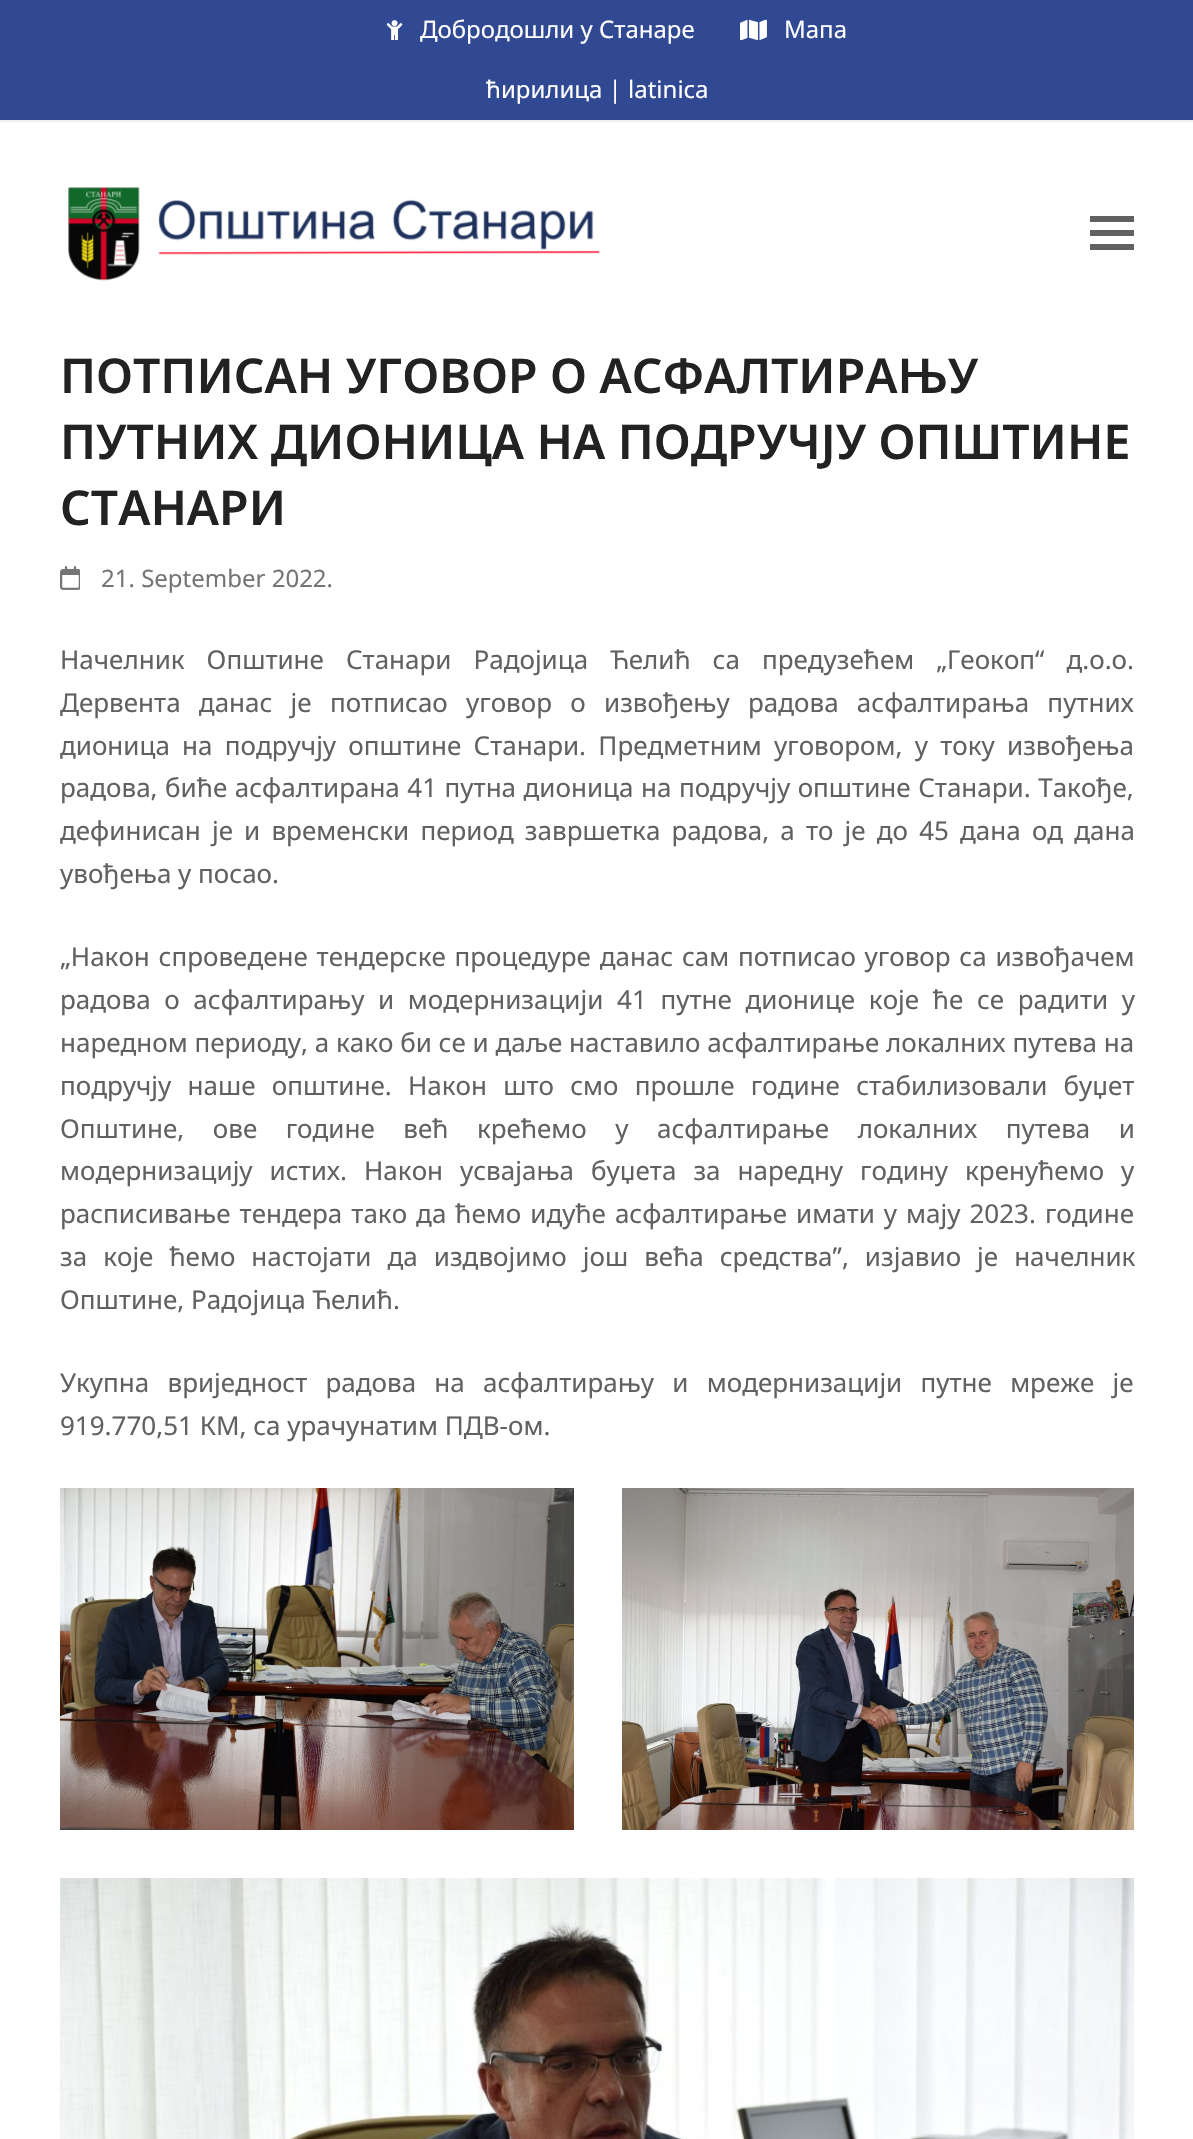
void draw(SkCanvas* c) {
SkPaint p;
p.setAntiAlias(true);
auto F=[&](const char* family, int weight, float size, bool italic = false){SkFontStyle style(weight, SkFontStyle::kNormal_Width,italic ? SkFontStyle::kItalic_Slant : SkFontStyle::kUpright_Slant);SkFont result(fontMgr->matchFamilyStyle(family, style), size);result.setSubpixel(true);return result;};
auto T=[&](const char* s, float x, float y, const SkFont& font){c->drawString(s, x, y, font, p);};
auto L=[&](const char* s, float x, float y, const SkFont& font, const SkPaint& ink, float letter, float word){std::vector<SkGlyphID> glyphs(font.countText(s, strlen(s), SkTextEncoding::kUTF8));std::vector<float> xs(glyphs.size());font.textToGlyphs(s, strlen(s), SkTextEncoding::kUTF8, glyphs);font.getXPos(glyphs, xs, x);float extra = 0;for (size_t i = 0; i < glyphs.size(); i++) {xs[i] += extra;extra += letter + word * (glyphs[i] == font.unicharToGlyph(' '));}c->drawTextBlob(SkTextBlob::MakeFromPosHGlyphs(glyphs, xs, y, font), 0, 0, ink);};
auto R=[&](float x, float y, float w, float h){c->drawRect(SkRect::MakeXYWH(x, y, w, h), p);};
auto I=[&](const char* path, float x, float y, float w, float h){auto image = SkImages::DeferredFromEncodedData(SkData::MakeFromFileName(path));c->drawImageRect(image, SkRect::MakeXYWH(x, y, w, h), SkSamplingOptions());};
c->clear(0xffffffff);
p.setColor(0xff304992);
R(0,0,1193,120);
p.setColor(0xffeeeeee);
R(0,120,1193,2);
I("1.png",386,20,17,20);
auto f1 = F("Noto Sans",400,24);
p.setColor(0xffffffff);
T("Добродошли у Станаре",420,38,f1);
I("2.png",740,19,27,21);
T("Мапа",784,38,f1);
T("ћирилица | latinica",486,98,f1);
I("3.png",68,187,532,94);
p.setColor(0xff616161);
R(1090,230,44,6);
R(1090,216,44,6);
R(1090,244,44,6);
auto f2 = F("Noto Sans",600,48);
p.setColor(0xff222222);
T("ПОТПИСАН УГОВОР О АСФАЛТИРАЊУ",60,393,f2);
T("ПУТНИХ ДИОНИЦА НА ПОДРУЧЈУ ОПШТИНЕ",60,459,f2);
T("СТАНАРИ",60,525,f2);
I("4.png",60,566,20,24);
p.setColor(0xff757575);
T("21. September 2022.",101,587,f1);
auto f3 = F("Noto Sans",400,26);
p.setColor(0xff616161);
L("Начелник Општине Станари Радојица Ћелић са предузећем „Геокоп“ д.о.о.",60,669,f3,p,0,15.25);
L("Дервента данас је потписао уговор о извођењу радова асфалтирања путних",60,712,f3,p,0,11.5);
L("дионица на подручју општине Станари. Предметним уговором, у току извођења",60,755,f3,p,0,5.5);
L("радова, биће асфалтирана 41 путна дионица на подручју општине Станари. Такође,",60,797,f3,p,0,.75);
L("дефинисан је и временски период завршетка радова, а то је до 45 дана од дана",60,840,f3,p,0,4.4);
T("увођења у посао.",60,883,f3);
L("„Након спроведене тендерске процедуре данас сам потписао уговор са извођачем",60,966,f3,p,0,2);
L("радова о асфалтирању и модернизацији 41 путне дионице које ће се радити у",60,1009,f3,p,0,6.9);
T("наредном периоду, а како би се и даље наставило асфалтирање локалних путева на",60,1052,f3);
L("подручју наше општине. Након што смо прошле године стабилизовали буџет",60,1095,f3,p,0,9.5);
L("Општине, ове године већ крећемо у асфалтирање локалних путева и",60,1138,f3,p,0,21.75);
L("модернизацију истих. Након усвајања буџета за наредну годину кренућемо у",60,1180,f3,p,0,10.25);
L("расписивање тендера тако да ћемо идуће асфалтирање имати у мају 2023. године",60,1223,f3,p,0,2.25);
L("за које ћемо настојати да издвојимо још већа средства”, изјавио је начелник",60,1266,f3,p,0,9.25);
T("Општине, Радојица Ћелић.",60,1309,f3);
L("Укупна вриједност радова на асфалтирању и модернизацији путне мреже је",60,1392,f3,p,0,11.5);
T("919.770,51 КМ, са урачунатим ПДВ-ом.",60,1435,f3);
I("5.png",60,1488,514,342);
I("6.png",622,1488,512,342);
I("7.png",60,1878,1074,261);
}
